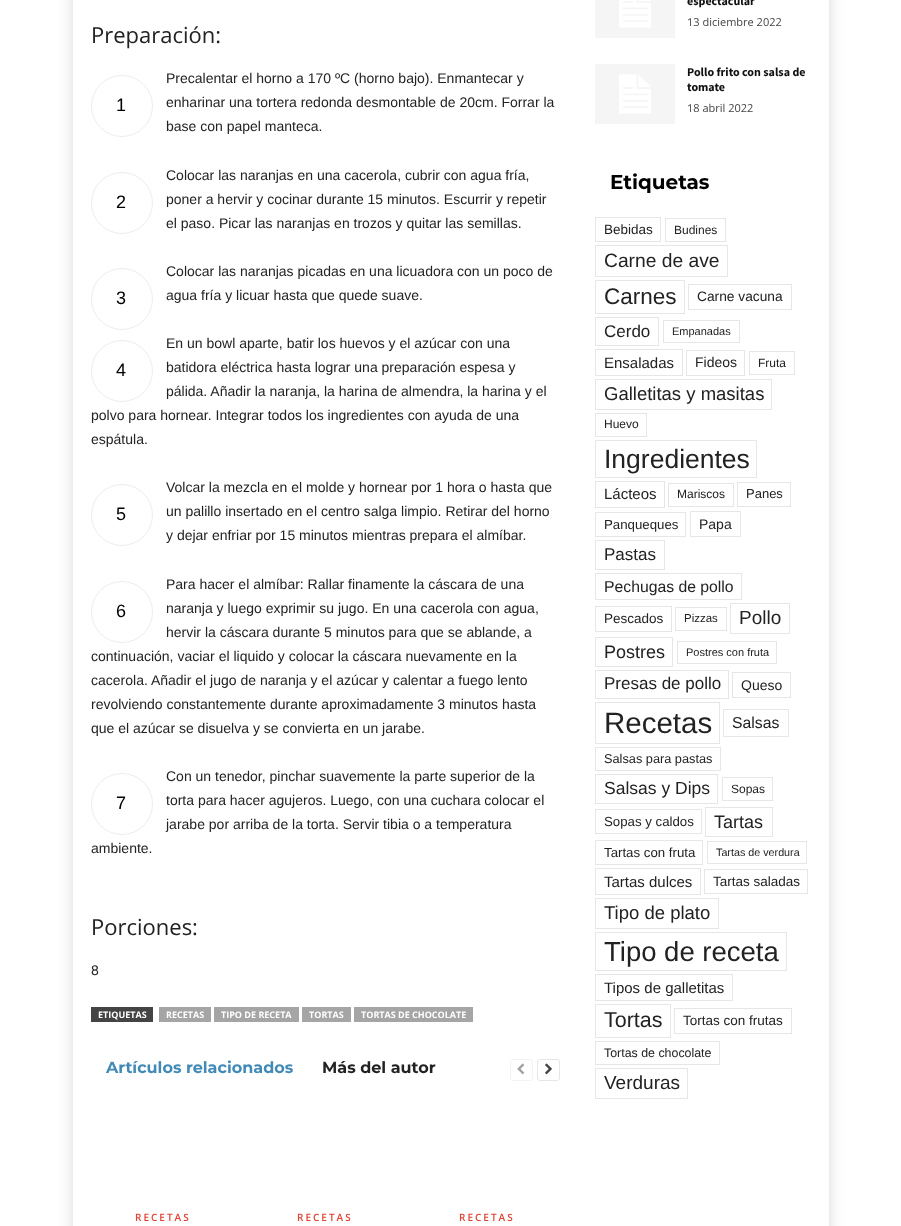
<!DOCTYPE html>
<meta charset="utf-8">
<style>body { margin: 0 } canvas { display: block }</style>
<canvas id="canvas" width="901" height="1226"></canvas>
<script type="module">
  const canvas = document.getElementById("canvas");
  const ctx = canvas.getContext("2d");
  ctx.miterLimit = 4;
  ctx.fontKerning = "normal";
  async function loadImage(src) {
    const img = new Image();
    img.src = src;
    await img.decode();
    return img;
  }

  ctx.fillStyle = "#ffffff";
  ctx.fillRect(0, 0, 901, 1226);
  ctx.save();
  ctx.beginPath();
  ctx.moveTo(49, 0);
  ctx.lineTo(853, 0);
  ctx.lineTo(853, 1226);
  ctx.lineTo(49, 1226);
  ctx.closePath();
  ctx.moveTo(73, -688);
  ctx.lineTo(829, -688);
  ctx.lineTo(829, 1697);
  ctx.lineTo(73, 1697);
  ctx.closePath();
  ctx.clip("evenodd");
  ctx.fillStyle = "rgba(0, 0, 0, 0.15)";
  ctx.filter = "blur(7.5px)";
  ctx.beginPath();
  ctx.rect(73, -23, 756, 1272);
  ctx.fill();
  ctx.filter = "none";
  ctx.restore();
  ctx.font = "22px Open Sans";
  ctx.fillStyle = "#222222";
  ctx.fillText("Preparación:", 91, 43);
  ctx.font = "14px Liberation Sans";
  ctx.fillText("Precalentar el horno a 170 ºC (horno bajo). Enmantecar y", 166, 83);
  ctx.beginPath();
  ctx.arc(122, 106, 30.5, 0, Math.PI * 2);
  ctx.strokeStyle = "#ededed";
  ctx.stroke();
  ctx.font = "18px Liberation Sans";
  ctx.fillStyle = "#000000";
  ctx.fillText("1", 116, 111);
  ctx.font = "14px Liberation Sans";
  ctx.fillStyle = "#222222";
  ctx.fillText("enharinar una tortera redonda desmontable de 20cm. Forrar la", 166, 107);
  ctx.fillText("base con papel manteca.", 166, 131);
  ctx.fillText("Colocar las naranjas en una cacerola, cubrir con agua fría,", 166, 180);
  ctx.beginPath();
  ctx.arc(122, 203, 30.5, 0, Math.PI * 2);
  ctx.stroke();
  ctx.font = "18px Liberation Sans";
  ctx.fillStyle = "#000000";
  ctx.fillText("2", 116, 208);
  ctx.font = "14px Liberation Sans";
  ctx.fillStyle = "#222222";
  ctx.fillText("poner a hervir y cocinar durante 15 minutos. Escurrir y repetir", 166, 204);
  ctx.fillText("el paso. Picar las naranjas en trozos y quitar las semillas.", 166, 228);
  ctx.fillText("Colocar las naranjas picadas en una licuadora con un poco de", 166, 276);
  ctx.beginPath();
  ctx.arc(122, 299, 30.5, 0, Math.PI * 2);
  ctx.stroke();
  ctx.font = "18px Liberation Sans";
  ctx.fillStyle = "#000000";
  ctx.fillText("3", 116, 304);
  ctx.font = "14px Liberation Sans";
  ctx.fillStyle = "#222222";
  ctx.fillText("agua fría y licuar hasta que quede suave.", 166, 300);
  ctx.fillText("En un bowl aparte, batir los huevos y el azúcar con una", 166, 348);
  ctx.beginPath();
  ctx.arc(122, 371, 30.5, 0, Math.PI * 2);
  ctx.stroke();
  ctx.font = "18px Liberation Sans";
  ctx.fillStyle = "#000000";
  ctx.fillText("4", 116, 376);
  ctx.font = "14px Liberation Sans";
  ctx.fillStyle = "#222222";
  ctx.fillText("batidora eléctrica hasta lograr una preparación espesa y", 166, 372);
  ctx.fillText("pálida. Añadir la naranja, la harina de almendra, la harina y el", 166, 396);
  ctx.fillText("polvo para hornear. Integrar todos los ingredientes con ayuda de una", 91, 420);
  ctx.fillText("espátula.", 91, 444);
  ctx.fillText("Volcar la mezcla en el molde y hornear por 1 hora o hasta que", 166, 492);
  ctx.beginPath();
  ctx.arc(122, 515, 30.5, 0, Math.PI * 2);
  ctx.stroke();
  ctx.font = "18px Liberation Sans";
  ctx.fillStyle = "#000000";
  ctx.fillText("5", 116, 520);
  ctx.font = "14px Liberation Sans";
  ctx.fillStyle = "#222222";
  ctx.fillText("un palillo insertado en el centro salga limpio. Retirar del horno", 166, 516);
  ctx.fillText("y dejar enfriar por 15 minutos mientras prepara el almíbar.", 166, 540);
  ctx.fillText("Para hacer el almíbar: Rallar finamente la cáscara de una", 166, 589);
  ctx.beginPath();
  ctx.arc(122, 612, 30.5, 0, Math.PI * 2);
  ctx.stroke();
  ctx.font = "18px Liberation Sans";
  ctx.fillStyle = "#000000";
  ctx.fillText("6", 116, 617);
  ctx.font = "14px Liberation Sans";
  ctx.fillStyle = "#222222";
  ctx.fillText("naranja y luego exprimir su jugo. En una cacerola con agua,", 166, 613);
  ctx.fillText("hervir la cáscara durante 5 minutos para que se ablande, a", 166, 637);
  ctx.fillText("continuación, vaciar el liquido y colocar la cáscara nuevamente en la", 91, 661);
  ctx.fillText("cacerola. Añadir el jugo de naranja y el azúcar y calentar a fuego lento", 91, 685);
  ctx.fillText("revolviendo constantemente durante aproximadamente 3 minutos hasta", 91, 709);
  ctx.fillText("que el azúcar se disuelva y se convierta en un jarabe.", 91, 733);
  ctx.fillText("Con un tenedor, pinchar suavemente la parte superior de la", 166, 781);
  ctx.beginPath();
  ctx.arc(122, 804, 30.5, 0, Math.PI * 2);
  ctx.stroke();
  ctx.font = "18px Liberation Sans";
  ctx.fillStyle = "#000000";
  ctx.fillText("7", 116, 809);
  ctx.font = "14px Liberation Sans";
  ctx.fillStyle = "#222222";
  ctx.fillText("torta para hacer agujeros. Luego, con una cuchara colocar el", 166, 805);
  ctx.fillText("jarabe por arriba de la torta. Servir tibia o a temperatura", 166, 829);
  ctx.fillText("ambiente.", 91, 853);
  ctx.font = "22px Open Sans";
  ctx.fillText("Porciones:", 91, 935);
  ctx.font = "14px Liberation Sans";
  ctx.fillText("8", 91, 975);
  ctx.fillStyle = "#444444";
  ctx.fillRect(91, 1007, 62, 15);
  ctx.font = "bold 9px Open Sans";
  ctx.fillStyle = "#ffffff";
  ctx.fillText("ETIQUETAS", 98, 1018);
  ctx.fillStyle = "#a5a5a5";
  ctx.fillRect(159, 1007, 52, 15);
  ctx.fillStyle = "#ffffff";
  ctx.fillText("RECETAS", 166, 1018);
  ctx.fillStyle = "#a5a5a5";
  ctx.fillRect(214, 1007, 85, 15);
  ctx.fillStyle = "#ffffff";
  ctx.fillText("TIPO DE RECETA", 221, 1018);
  ctx.fillStyle = "#a5a5a5";
  ctx.fillRect(302, 1007, 49, 15);
  ctx.fillStyle = "#ffffff";
  ctx.fillText("TORTAS", 309, 1018);
  ctx.fillStyle = "#a5a5a5";
  ctx.fillRect(354, 1007, 119, 15);
  ctx.fillStyle = "#ffffff";
  ctx.fillText("TORTAS DE CHOCOLATE", 361, 1018);
  ctx.font = "bold 16px Montserrat";
  ctx.fillStyle = "#418ab7";
  ctx.fillText("Artículos relacionados", 106, 1073);
  ctx.fillStyle = "#222222";
  ctx.fillText("Más del autor", 322, 1073);
  ctx.beginPath();
  ctx.roundRect(510.5, 1059.5, 22, 21, 2.5);
  ctx.strokeStyle = "#f3f3f3";
  ctx.stroke();
  ctx.drawImage(await loadImage("img1.png"), 517, 1063, 8, 12);
  ctx.beginPath();
  ctx.roundRect(537.5, 1059.5, 22, 21, 2.5);
  ctx.strokeStyle = "#e6e6e6";
  ctx.stroke();
  ctx.drawImage(await loadImage("img2.png"), 545, 1063, 7, 12);
  ctx.letterSpacing = "2px";
  ctx.font = "600 10px Open Sans";
  ctx.fillStyle = "#e24234";
  ctx.fillText("RECETAS", 135, 1221);
  ctx.fillText("RECETAS", 297, 1221);
  ctx.fillText("RECETAS", 459, 1221);
  ctx.drawImage(await loadImage("img3.png"), 595, 0, 80, 38);
  ctx.letterSpacing = "0px";
  ctx.font = "bold 12px Source Sans Pro";
  ctx.fillStyle = "#111111";
  ctx.fillText("espectacular", 687, 5);
  ctx.font = "11px Open Sans";
  ctx.fillStyle = "#444444";
  ctx.fillText("13 diciembre 2022", 687, 26);
  ctx.drawImage(await loadImage("img4.png"), 595, 64, 80, 60);
  ctx.font = "bold 12px Source Sans Pro";
  ctx.fillStyle = "#111111";
  ctx.fillText("Pollo frito con salsa de", 687, 76);
  ctx.fillText("tomate", 687, 91);
  ctx.font = "11px Open Sans";
  ctx.fillStyle = "#444444";
  ctx.fillText("18 abril 2022", 687, 112);
  ctx.font = "bold 20px Montserrat";
  ctx.fillStyle = "#000000";
  ctx.fillText("Etiquetas", 610, 189);
  ctx.strokeRect(595.5, 217.5, 65, 24);
  ctx.font = "13.5px Liberation Sans";
  ctx.fillStyle = "#222222";
  ctx.fillText("Bebidas", 604, 234);
  ctx.strokeRect(665.5, 218.5, 60, 23);
  ctx.font = "12px Liberation Sans";
  ctx.fillText("Budines", 674, 234);
  ctx.strokeRect(595.5, 245.5, 132, 31);
  ctx.font = "19.25px Liberation Sans";
  ctx.fillText("Carne de ave", 604, 267);
  ctx.strokeRect(595.5, 280.5, 89, 33);
  ctx.font = "22.5px Liberation Sans";
  ctx.fillText("Carnes", 604, 304);
  ctx.strokeRect(688.5, 284.5, 103, 25);
  ctx.font = "13.75px Liberation Sans";
  ctx.fillText("Carne vacuna", 697, 301);
  ctx.strokeRect(595.5, 317.5, 63, 28);
  ctx.font = "17px Liberation Sans";
  ctx.fillText("Cerdo", 604, 337);
  ctx.strokeRect(663.5, 320.5, 76, 22);
  ctx.font = "11px Liberation Sans";
  ctx.fillText("Empanadas", 672, 335);
  ctx.strokeRect(595.5, 349.5, 87, 26);
  ctx.font = "15px Liberation Sans";
  ctx.fillText("Ensaladas", 604, 368);
  ctx.strokeRect(686.5, 350.5, 58, 25);
  ctx.font = "14px Liberation Sans";
  ctx.fillText("Fideos", 695, 367);
  ctx.strokeRect(749.5, 351.5, 45, 23);
  ctx.font = "12px Liberation Sans";
  ctx.fillText("Fruta", 758, 367);
  ctx.strokeRect(595.5, 379.5, 176, 30);
  ctx.font = "18.5px Liberation Sans";
  ctx.fillText("Galletitas y masitas", 604, 400);
  ctx.strokeRect(595.5, 413.5, 51, 23);
  ctx.font = "12px Liberation Sans";
  ctx.fillText("Huevo", 604, 428);
  ctx.strokeRect(595.5, 440.5, 161, 37);
  ctx.font = "26.5px Liberation Sans";
  ctx.fillText("Ingredientes", 604, 468);
  ctx.strokeRect(595.5, 481.5, 69, 26);
  ctx.font = "15px Liberation Sans";
  ctx.fillText("Lácteos", 604, 499);
  ctx.strokeRect(668.5, 483.5, 65, 23);
  ctx.font = "12px Liberation Sans";
  ctx.fillText("Mariscos", 677, 498);
  ctx.strokeRect(737.5, 482.5, 53, 24);
  ctx.font = "13px Liberation Sans";
  ctx.fillText("Panes", 746, 498);
  ctx.strokeRect(595.5, 512.5, 90, 24);
  ctx.font = "13.25px Liberation Sans";
  ctx.fillText("Panqueques", 604, 529);
  ctx.strokeRect(690.5, 511.5, 50, 25);
  ctx.font = "14px Liberation Sans";
  ctx.fillText("Papa", 699, 529);
  ctx.strokeRect(595.5, 540.5, 69, 29);
  ctx.font = "17px Liberation Sans";
  ctx.fillText("Pastas", 604, 560);
  ctx.strokeRect(595.5, 573.5, 146, 26);
  ctx.font = "15.75px Liberation Sans";
  ctx.fillText("Pechugas de pollo", 604, 592);
  ctx.strokeRect(595.5, 606.5, 76, 25);
  ctx.font = "13.5px Liberation Sans";
  ctx.fillText("Pescados", 604, 623);
  ctx.strokeRect(675.5, 607.5, 51, 23);
  ctx.font = "11.5px Liberation Sans";
  ctx.fillText("Pizzas", 684, 622);
  ctx.strokeRect(730.5, 603.5, 59, 30);
  ctx.font = "19px Liberation Sans";
  ctx.fillText("Pollo", 739, 624);
  ctx.strokeRect(595.5, 637.5, 77, 29);
  ctx.font = "18px Liberation Sans";
  ctx.fillText("Postres", 604, 658);
  ctx.strokeRect(677.5, 641.5, 99, 22);
  ctx.font = "11px Liberation Sans";
  ctx.fillText("Postres con fruta", 686, 656);
  ctx.strokeRect(595.5, 670.5, 133, 28);
  ctx.font = "17px Liberation Sans";
  ctx.fillText("Presas de pollo", 604, 689);
  ctx.strokeRect(732.5, 672.5, 58, 25);
  ctx.font = "14px Liberation Sans";
  ctx.fillText("Queso", 741, 690);
  ctx.strokeRect(595.5, 702.5, 124, 41);
  ctx.font = "29.5px Liberation Sans";
  ctx.fillText("Recetas", 604, 733);
  ctx.strokeRect(723.5, 709.5, 65, 27);
  ctx.font = "15.75px Liberation Sans";
  ctx.fillText("Salsas", 732, 728);
  ctx.strokeRect(595.5, 747.5, 125, 23);
  ctx.font = "12.75px Liberation Sans";
  ctx.fillText("Salsas para pastas", 604, 763);
  ctx.strokeRect(595.5, 774.5, 122, 29);
  ctx.font = "17.5px Liberation Sans";
  ctx.fillText("Salsas y Dips", 604, 794);
  ctx.strokeRect(722.5, 777.5, 50, 23);
  ctx.font = "12px Liberation Sans";
  ctx.fillText("Sopas", 731, 793);
  ctx.strokeRect(595.5, 809.5, 106, 24);
  ctx.font = "13.25px Liberation Sans";
  ctx.fillText("Sopas y caldos", 604, 826);
  ctx.strokeRect(705.5, 807.5, 67, 29);
  ctx.font = "18px Liberation Sans";
  ctx.fillText("Tartas", 714, 828);
  ctx.strokeRect(595.5, 840.5, 107, 24);
  ctx.font = "13.25px Liberation Sans";
  ctx.fillText("Tartas con fruta", 604, 857);
  ctx.strokeRect(707.5, 841.5, 99, 22);
  ctx.font = "10.75px Liberation Sans";
  ctx.fillText("Tartas de verdura", 716, 856);
  ctx.strokeRect(595.5, 868.5, 105, 26);
  ctx.font = "15px Liberation Sans";
  ctx.fillText("Tartas dulces", 604, 887);
  ctx.strokeRect(704.5, 869.5, 103, 24);
  ctx.font = "13.5px Liberation Sans";
  ctx.fillText("Tartas saladas", 713, 886);
  ctx.strokeRect(595.5, 898.5, 123, 30);
  ctx.font = "18.5px Liberation Sans";
  ctx.fillText("Tipo de plato", 604, 919);
  ctx.strokeRect(595.5, 932.5, 191, 38);
  ctx.font = "27.5px Liberation Sans";
  ctx.fillText("Tipo de receta", 604, 961);
  ctx.strokeRect(595.5, 974.5, 137, 26);
  ctx.font = "15px Liberation Sans";
  ctx.fillText("Tipos de galletitas", 604, 993);
  ctx.strokeRect(595.5, 1004.5, 75, 33);
  ctx.font = "21.5px Liberation Sans";
  ctx.fillText("Tortas", 604, 1027);
  ctx.strokeRect(674.5, 1008.5, 117, 25);
  ctx.font = "13.5px Liberation Sans";
  ctx.fillText("Tortas con frutas", 683, 1025);
  ctx.strokeRect(595.5, 1041.5, 124, 23);
  ctx.font = "12.4px Liberation Sans";
  ctx.fillText("Tortas de chocolate", 604, 1057);
  ctx.strokeRect(595.5, 1068.5, 92, 30);
  ctx.font = "19px Liberation Sans";
  ctx.fillText("Verduras", 604, 1089);
</script>
